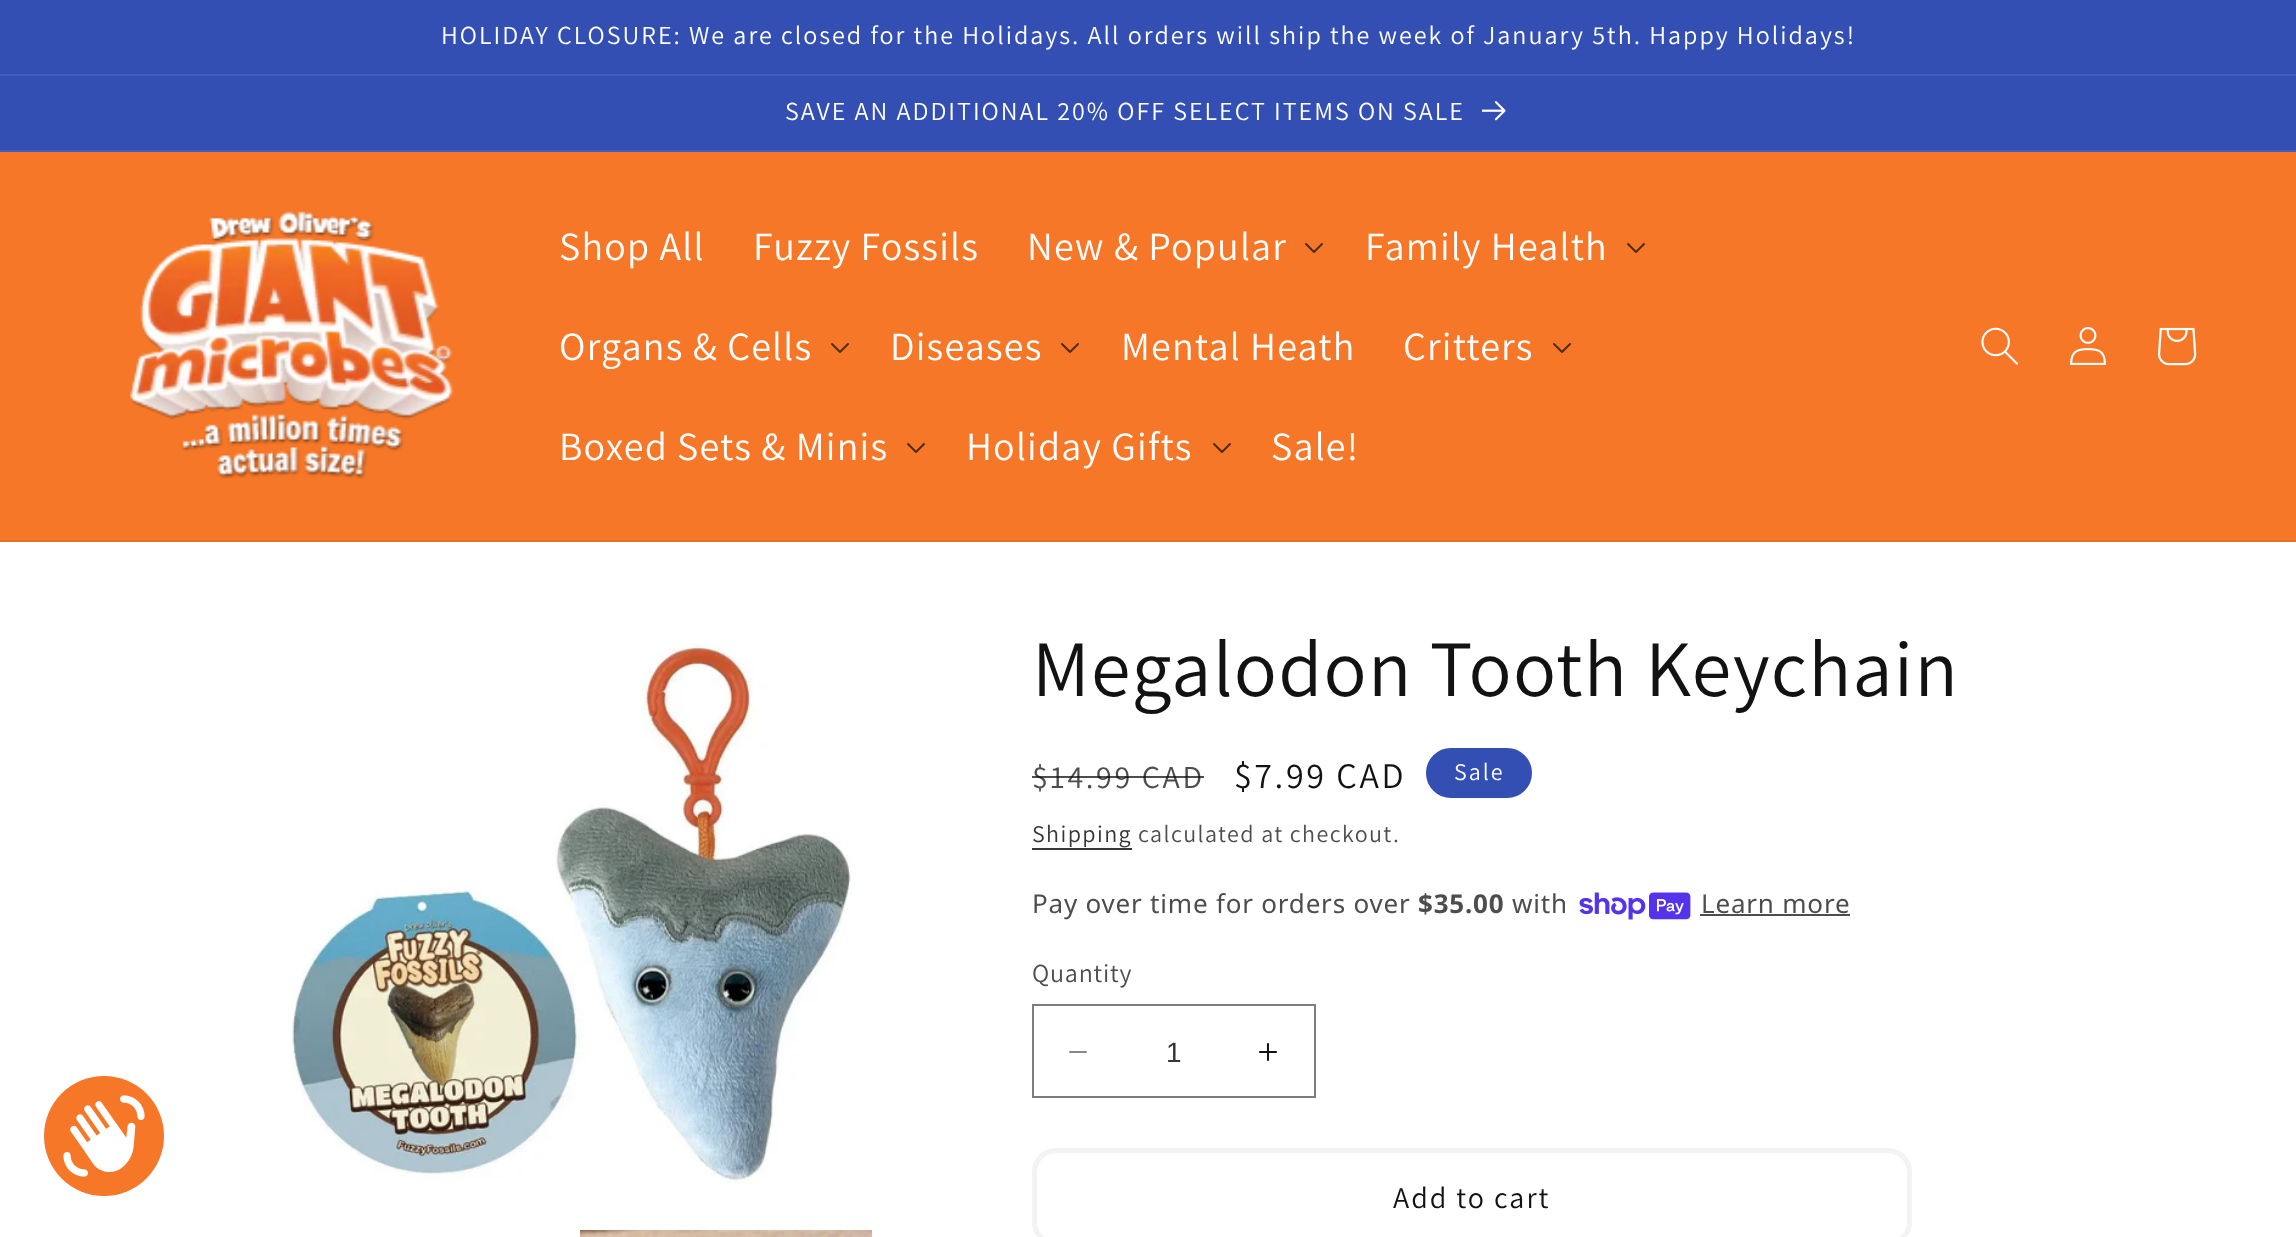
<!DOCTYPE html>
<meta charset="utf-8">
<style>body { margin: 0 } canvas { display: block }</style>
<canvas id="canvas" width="2296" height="1237"></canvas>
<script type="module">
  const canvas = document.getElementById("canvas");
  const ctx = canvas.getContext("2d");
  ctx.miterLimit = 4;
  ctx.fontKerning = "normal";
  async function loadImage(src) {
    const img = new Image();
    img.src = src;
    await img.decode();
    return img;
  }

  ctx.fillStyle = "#ffffff";
  ctx.fillRect(0, 0, 2296, 1237);
  ctx.fillStyle = "#334fb4";
  ctx.fillRect(0, 0, 2296, 74);
  ctx.fillStyle = "#435dba";
  ctx.fillRect(0, 74, 2296, 2);
  ctx.letterSpacing = "2px";
  ctx.font = "26px Assistant";
  ctx.fillStyle = "#ffffff";
  ctx.fillText("HOLIDAY CLOSURE: We are closed for the Holidays. All orders will ship the week of January 5th. Happy Holidays!", 441, 44);
  ctx.fillStyle = "#334fb4";
  ctx.fillRect(0, 76, 2296, 74);
  ctx.fillStyle = "#435dba";
  ctx.fillRect(0, 150, 2296, 2);
  ctx.fillStyle = "#ffffff";
  ctx.fillText("SAVE AN ADDITIONAL 20% OFF SELECT ITEMS ON SALE", 785, 120);
  ctx.drawImage(await loadImage("img1.png"), 1482, 101, 24, 20);
  ctx.fillStyle = "#f67728";
  ctx.fillRect(0, 152, 2296, 388);
  ctx.fillStyle = "#e46f26";
  ctx.fillRect(0, 540, 2296, 2);
  ctx.drawImage(await loadImage("img2.png"), 130, 211, 324, 268);
  ctx.letterSpacing = "1.2px";
  ctx.font = "40px Assistant";
  ctx.fillStyle = "#ffffff";
  ctx.fillText("Shop All", 559, 260);
  ctx.fillText("Fuzzy Fossils", 753, 260);
  ctx.fillText("New & Popular", 1027, 260);
  ctx.drawImage(await loadImage("img3.png"), 1305, 243, 18, 10);
  ctx.fillText("Family Health", 1365, 260);
  ctx.drawImage(await loadImage("img3.png"), 1627, 243, 18, 10);
  ctx.fillText("Organs & Cells", 559, 360);
  ctx.drawImage(await loadImage("img3.png"), 831, 343, 18, 10);
  ctx.fillText("Diseases", 890, 360);
  ctx.drawImage(await loadImage("img3.png"), 1061, 343, 18, 10);
  ctx.fillText("Mental Heath", 1121, 360);
  ctx.fillText("Critters", 1403, 360);
  ctx.drawImage(await loadImage("img3.png"), 1553, 343, 18, 10);
  ctx.fillText("Boxed Sets & Minis", 559, 460);
  ctx.drawImage(await loadImage("img3.png"), 907, 443, 18, 10);
  ctx.fillText("Holiday Gifts", 966, 460);
  ctx.drawImage(await loadImage("img3.png"), 1213, 443, 18, 10);
  ctx.fillText("Sale!", 1271, 460);
  ctx.drawImage(await loadImage("img4.png"), 1981, 327, 37, 38);
  ctx.drawImage(await loadImage("img5.png"), 2070, 327, 36, 38);
  ctx.drawImage(await loadImage("img6.png"), 2158, 327, 39, 39);
  ctx.fillStyle = "#f67728";
  ctx.beginPath();
  ctx.arc(104, 1136, 60, 0, Math.PI * 2);
  ctx.fill();
  ctx.drawImage(await loadImage("img7.png"), 63, 1095, 82, 82);
  ctx.drawImage(await loadImage("img8.png"), 291, 643, 561, 540);
  ctx.drawImage(await loadImage("img9.png"), 580, 1230, 292, 7);
  ctx.font = "80px Assistant";
  ctx.fillStyle = "#121212";
  ctx.fillText("Megalodon Tooth Keychain", 1032, 696);
  ctx.letterSpacing = "2.6px";
  ctx.font = "32px Assistant";
  ctx.fillStyle = "#4d4d4d";
  ctx.fillText("$14.99 CAD", 1032, 788);
  ctx.fillStyle = "rgba(18, 18, 18, 0.75)";
  ctx.fillRect(1032, 776, 172, 2);
  ctx.font = "36px Assistant";
  ctx.fillStyle = "#121212";
  ctx.fillText("$7.99 CAD", 1234, 788);
  ctx.fillStyle = "#334fb4";
  ctx.beginPath();
  ctx.roundRect(1427, 749, 104, 48, 24);
  ctx.fill();
  ctx.strokeStyle = "#334fb4";
  ctx.lineWidth = 2;
  ctx.stroke();
  ctx.letterSpacing = "2px";
  ctx.font = "24px Assistant";
  ctx.fillStyle = "#ffffff";
  ctx.fillText("Sale", 1454, 780);
  ctx.letterSpacing = "1.4px";
  ctx.fillStyle = "#363636";
  ctx.fillText("Shipping", 1032, 842);
  ctx.fillRect(1032, 848, 100, 2);
  ctx.fillStyle = "#4d4d4d";
  ctx.fillText("calculated at checkout.", 1138, 842);
  ctx.letterSpacing = "0.8px";
  ctx.font = "26px Noto Sans";
  ctx.fillText("Pay over time for orders over", 1032, 913);
  ctx.font = "bold 26px Noto Sans";
  ctx.fillText("$35.00", 1418, 913);
  ctx.font = "26px Noto Sans";
  ctx.fillText("with", 1512, 913);
  ctx.drawImage(await loadImage("img10.png"), 1579, 892, 112, 28);
  ctx.fillText("Learn more", 1701, 913);
  ctx.fillRect(1700, 914, 150, 2);
  ctx.font = "26px Assistant";
  ctx.fillText("Quantity", 1032, 982);
  ctx.drawImage(await loadImage("img11.png"), 1069, 1051, 18, 2);
  ctx.drawImage(await loadImage("img12.png"), 1259, 1043, 18, 18);
  ctx.strokeStyle = "#7d7d7d";
  ctx.strokeRect(1033, 1005, 282, 92);
  ctx.letterSpacing = "0px";
  ctx.font = "28px Liberation Sans";
  ctx.fillStyle = "#363636";
  ctx.fillText("1", 1166, 1062);
  ctx.beginPath();
  ctx.roundRect(1034.5, 1150.5, 875, 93, 21.5);
  ctx.strokeStyle = "#f3f3f3";
  ctx.lineWidth = 5;
  ctx.stroke();
  ctx.letterSpacing = "2px";
  ctx.font = "30px Assistant";
  ctx.fillStyle = "#121212";
  ctx.fillText("Add to cart", 1393, 1208);
</script>
